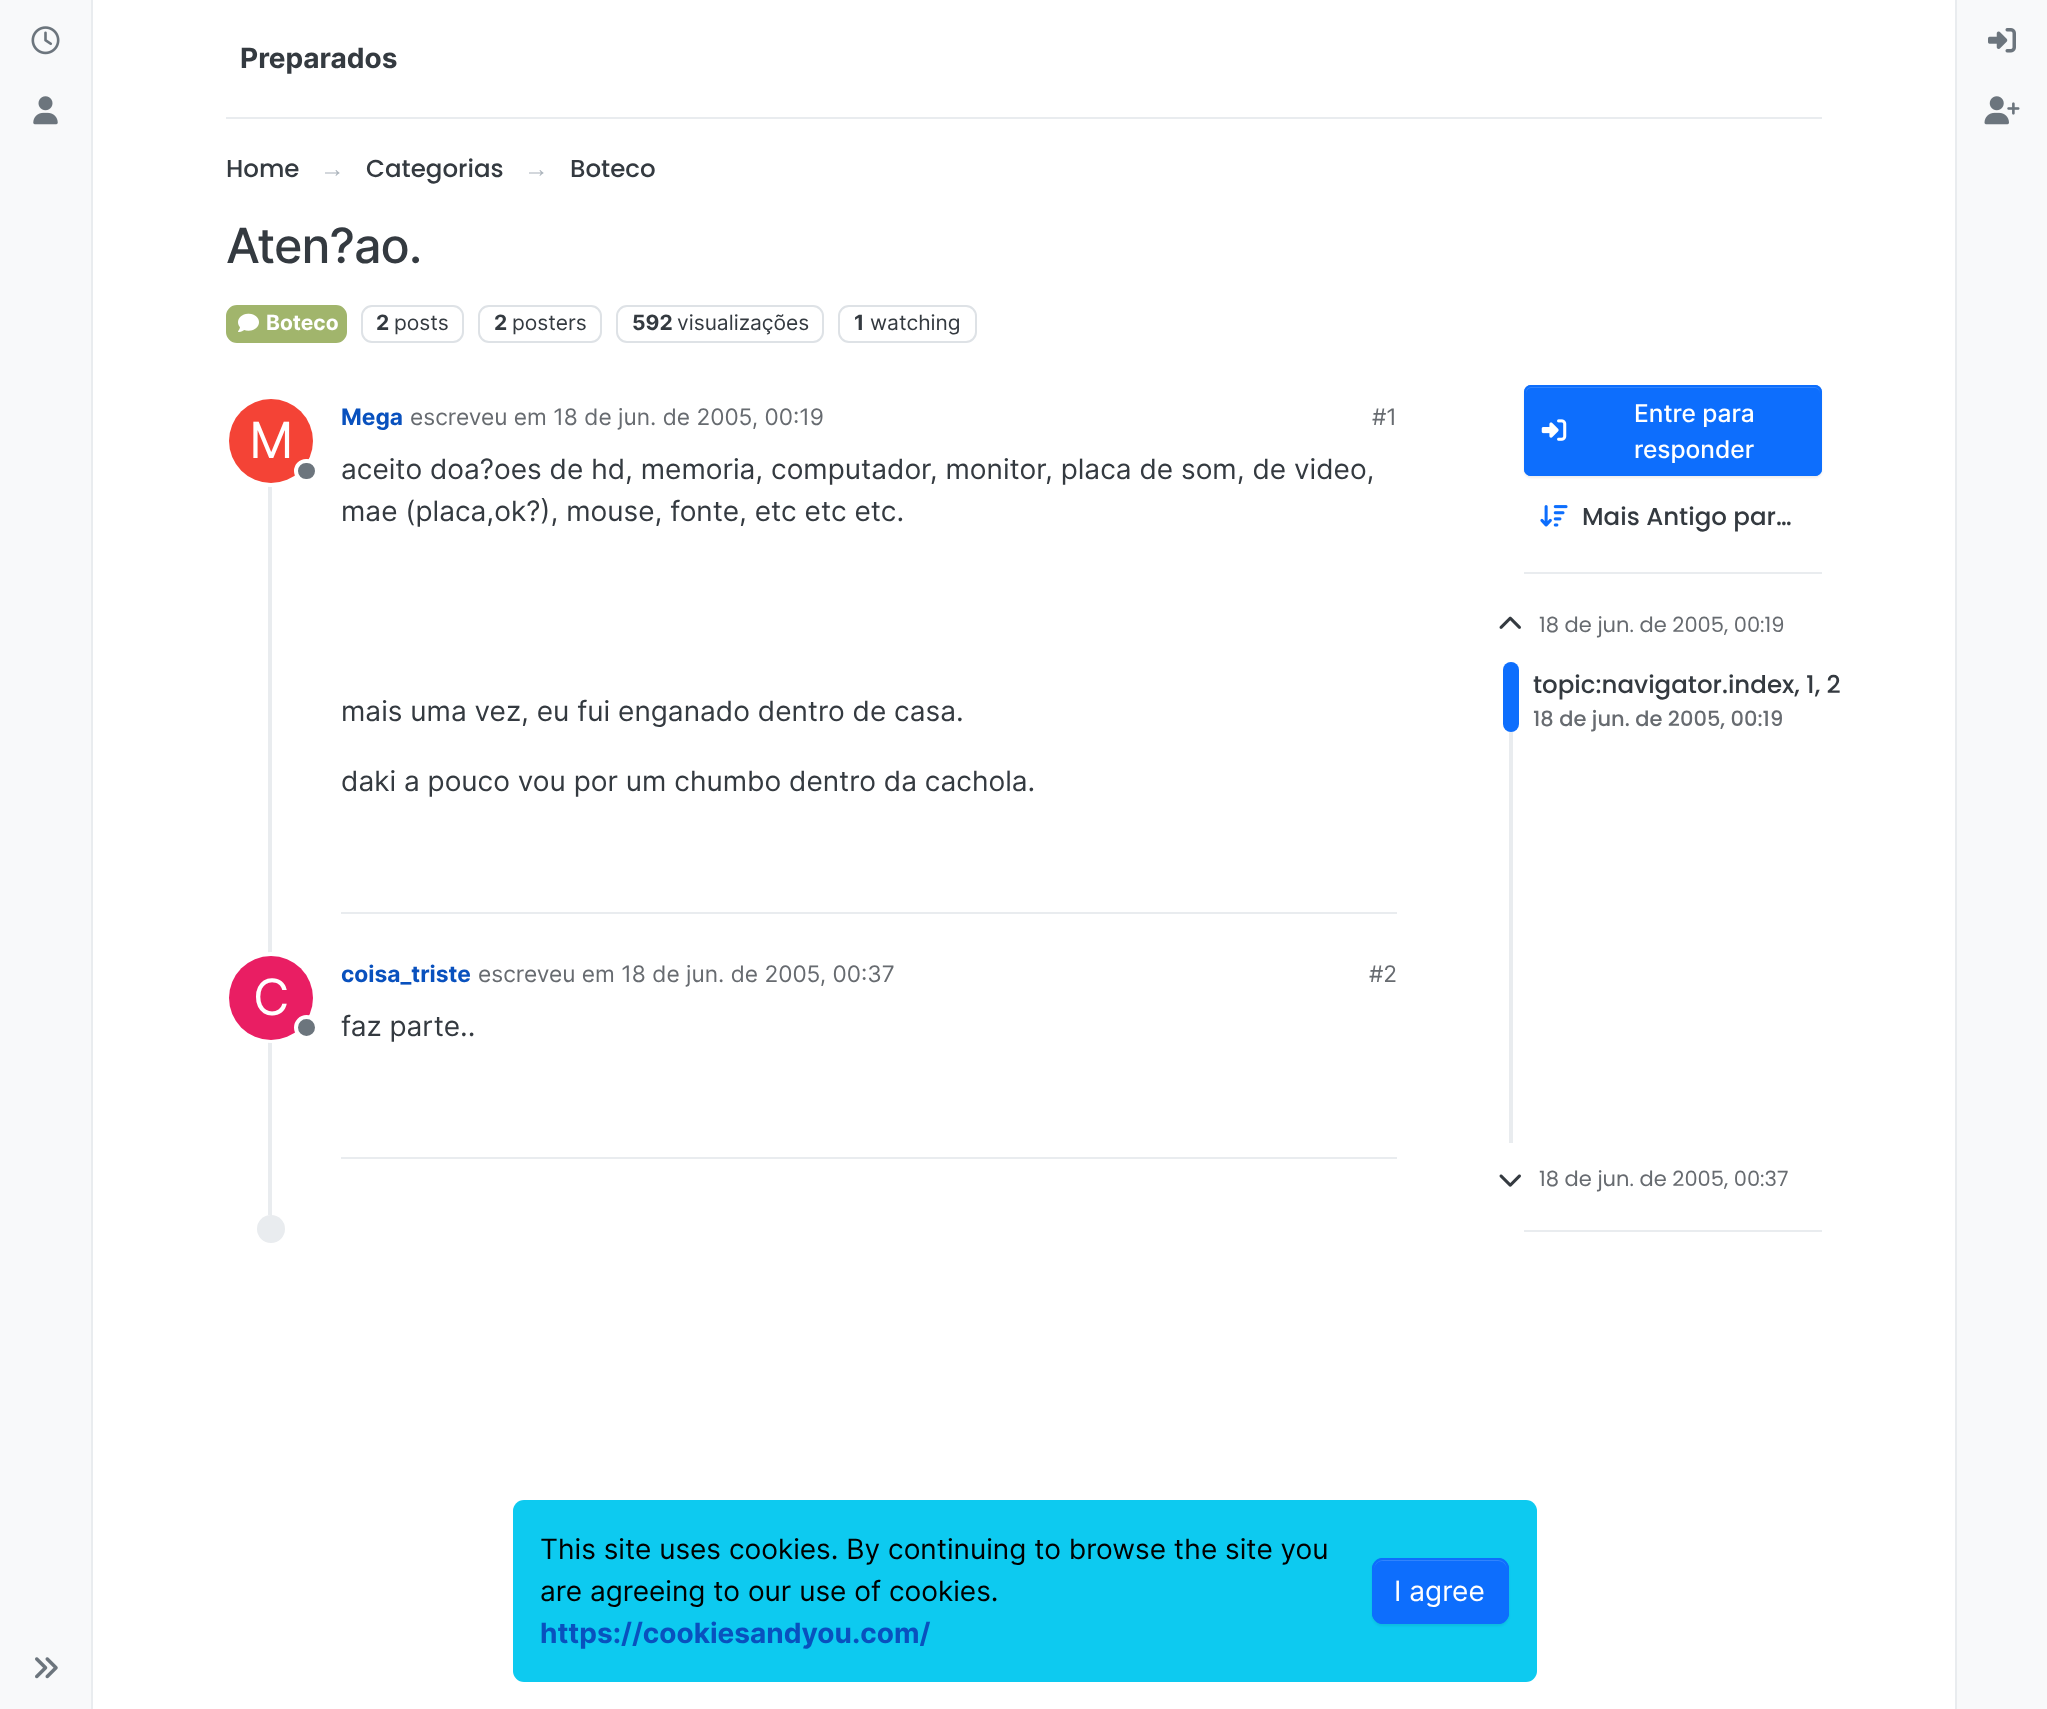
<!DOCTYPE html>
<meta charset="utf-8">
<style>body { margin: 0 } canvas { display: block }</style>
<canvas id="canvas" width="2047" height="1709"></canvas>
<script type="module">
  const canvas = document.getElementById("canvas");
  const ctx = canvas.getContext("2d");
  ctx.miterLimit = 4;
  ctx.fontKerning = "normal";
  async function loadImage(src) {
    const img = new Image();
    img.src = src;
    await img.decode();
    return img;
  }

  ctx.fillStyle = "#ffffff";
  ctx.fillRect(0, 0, 2047, 1709);
  ctx.fillStyle = "#f8f9fa";
  ctx.fillRect(0, 0, 91, 1709);
  ctx.fillStyle = "#e9ecef";
  ctx.fillRect(91, 0, 2, 1709);
  ctx.drawImage(await loadImage("img1.png"), 31, 26, 29, 29);
  ctx.drawImage(await loadImage("img2.png"), 33, 96, 25, 29);
  ctx.drawImage(await loadImage("img3.png"), 35, 1657, 23, 22);
  ctx.fillRect(226, 117, 1596, 2);
  ctx.font = "bold 28px Inter";
  ctx.fillStyle = "#343a40";
  ctx.fillText("Preparados", 240, 68);
  ctx.font = "500 24.5px Poppins";
  ctx.fillText("Home", 226, 177);
  ctx.font = "24.5px Liberation Sans";
  ctx.fillStyle = "#adb5bd";
  ctx.fillText("→", 320, 177);
  ctx.font = "500 24.5px Poppins";
  ctx.fillStyle = "#343a40";
  ctx.fillText("Categorias", 366, 177);
  ctx.font = "24.5px Liberation Sans";
  ctx.fillStyle = "#adb5bd";
  ctx.fillText("→", 524, 177);
  ctx.font = "500 24.5px Poppins";
  ctx.fillStyle = "#343a40";
  ctx.fillText("Boteco", 570, 177);
  ctx.letterSpacing = "-1px";
  ctx.font = "500 48.5px Inter";
  ctx.fillText("Aten?ao.", 226, 263);
  ctx.fillStyle = "#a1b56c";
  ctx.beginPath();
  ctx.roundRect(227, 306, 119, 36, 10);
  ctx.fill();
  ctx.strokeStyle = "#a1b56c";
  ctx.lineWidth = 2;
  ctx.stroke();
  ctx.drawImage(await loadImage("img4.png"), 238, 313, 21, 19);
  ctx.letterSpacing = "0px";
  ctx.font = "bold 21px Inter";
  ctx.fillStyle = "#ffffff";
  ctx.fillText("Boteco", 266, 330);
  ctx.beginPath();
  ctx.roundRect(362, 306, 101, 36, 10);
  ctx.strokeStyle = "#dee2e6";
  ctx.stroke();
  ctx.fillStyle = "#343a40";
  ctx.fillText("2", 376, 330);
  ctx.font = "21px Inter";
  ctx.fillText("posts", 394, 330);
  ctx.beginPath();
  ctx.roundRect(479, 306, 122, 36, 10);
  ctx.stroke();
  ctx.font = "bold 21px Inter";
  ctx.fillText("2", 494, 330);
  ctx.font = "21px Inter";
  ctx.fillText("posters", 512, 330);
  ctx.beginPath();
  ctx.roundRect(617, 306, 206, 36, 10);
  ctx.stroke();
  ctx.font = "bold 21px Inter";
  ctx.fillText("592", 632, 330);
  ctx.font = "21px Inter";
  ctx.fillText("visualizações", 677, 330);
  ctx.beginPath();
  ctx.roundRect(839, 306, 137, 36, 10);
  ctx.stroke();
  ctx.font = "bold 21px Inter";
  ctx.fillText("1", 854, 330);
  ctx.font = "21px Inter";
  ctx.fillText("watching", 870, 330);
  ctx.fillStyle = "#e9ecef";
  ctx.fillRect(268, 482, 4, 733);
  ctx.beginPath();
  ctx.arc(271.5, 441.5, 43.5, 0, Math.PI * 2);
  ctx.strokeStyle = "#ffffff";
  ctx.lineWidth = 4;
  ctx.stroke();
  ctx.fillStyle = "#f44336";
  ctx.beginPath();
  ctx.arc(271, 441, 42, 0, Math.PI * 2);
  ctx.fill();
  ctx.font = "50px Inter";
  ctx.fillStyle = "#ffffff";
  ctx.fillText("M", 249, 458);
  ctx.fillStyle = "#6c757d";
  ctx.beginPath();
  ctx.roundRect(296, 461, 21, 20, 10);
  ctx.fill();
  ctx.stroke();
  ctx.font = "bold 22.75px Inter";
  ctx.fillStyle = "#0951be";
  ctx.fillText("Mega", 341, 425);
  ctx.font = "22.75px Inter";
  ctx.fillStyle = "#676b70";
  ctx.fillText("escreveu em 18 de jun. de 2005, 00:19", 410, 425);
  ctx.fillText("#1", 1372, 425);
  ctx.font = "28px Inter";
  ctx.fillStyle = "#343a40";
  ctx.fillText("aceito doa?oes de hd, memoria, computador, monitor, placa de som, de video,", 341, 479);
  ctx.fillText("mae (placa,ok?), mouse, fonte, etc etc etc.", 341, 521);
  ctx.fillText("mais uma vez, eu fui enganado dentro de casa.", 341, 721);
  ctx.fillText("daki a pouco vou por um chumbo dentro da cachola.", 341, 791);
  ctx.fillStyle = "#e9ecef";
  ctx.fillRect(341, 912, 1056, 2);
  ctx.beginPath();
  ctx.arc(271.5, 997.5, 43.5, 0, Math.PI * 2);
  ctx.stroke();
  ctx.fillStyle = "#e91e63";
  ctx.beginPath();
  ctx.arc(271, 998, 42, 0, Math.PI * 2);
  ctx.fill();
  ctx.font = "50px Inter";
  ctx.fillStyle = "#ffffff";
  ctx.fillText("C", 253, 1015);
  ctx.fillStyle = "#6c757d";
  ctx.beginPath();
  ctx.arc(306.5, 1027.5, 10.5, 0, Math.PI * 2);
  ctx.fill();
  ctx.stroke();
  ctx.font = "bold 22.75px Inter";
  ctx.fillStyle = "#0951be";
  ctx.fillText("coisa_triste", 341, 982);
  ctx.font = "22.75px Inter";
  ctx.fillStyle = "#676b70";
  ctx.fillText("escreveu em 18 de jun. de 2005, 00:37", 478, 982);
  ctx.fillText("#2", 1369, 982);
  ctx.font = "28px Inter";
  ctx.fillStyle = "#343a40";
  ctx.fillText("faz parte..", 341, 1036);
  ctx.fillStyle = "#e9ecef";
  ctx.fillRect(341, 1157, 1056, 2);
  ctx.beginPath();
  ctx.arc(271, 1229, 14, 0, Math.PI * 2);
  ctx.fill();
  ctx.fillStyle = "rgba(0, 0, 0, 0.07)";
  ctx.filter = "blur(1px)";
  ctx.beginPath();
  ctx.roundRect(1524, 387, 298, 91, 7);
  ctx.fill();
  ctx.filter = "none";
  ctx.fillStyle = "#0d6efd";
  ctx.beginPath();
  ctx.roundRect(1524, 385, 298, 91, 7);
  ctx.fill();
  ctx.fillStyle = "#3184fd";
  ctx.beginPath();
  ctx.moveTo(1531, 388);
  ctx.lineTo(1815, 388);
  ctx.bezierCurveTo(1818, 388, 1820, 391, 1820, 394);
  ctx.bezierCurveTo(1820, 391, 1819, 387, 1815, 387);
  ctx.lineTo(1530, 387);
  ctx.bezierCurveTo(1526, 388, 1526, 391, 1526, 394);
  ctx.bezierCurveTo(1526, 391, 1528, 388, 1531, 388);
  ctx.closePath();
  ctx.fill();
  ctx.beginPath();
  ctx.roundRect(1525, 386, 296, 89, 6);
  ctx.strokeStyle = "#0d6efd";
  ctx.lineWidth = 2;
  ctx.stroke();
  ctx.drawImage(await loadImage("img5.png"), 1541, 419, 26, 22);
  ctx.font = "500 24.5px Inter";
  ctx.fillStyle = "#ffffff";
  ctx.fillText("Entre para", 1634, 422);
  ctx.fillText("responder", 1634, 458);
  ctx.drawImage(await loadImage("img6.png"), 1540, 505, 28, 22);
  ctx.font = "500 24.5px Poppins";
  ctx.fillStyle = "#343a40";
  ctx.fillText("Mais Antigo par…", 1582, 525);
  ctx.fillStyle = "#e9ecef";
  ctx.fillRect(1524, 572, 298, 2);
  ctx.drawImage(await loadImage("img7.png"), 1499, 616, 22, 13);
  ctx.font = "21px Poppins";
  ctx.fillStyle = "#676b70";
  ctx.fillText("18 de jun. de 2005, 00:19", 1539, 632);
  ctx.fillStyle = "#e9ecef";
  ctx.fillRect(1509, 662, 4, 481);
  ctx.fillStyle = "#0d6efd";
  ctx.beginPath();
  ctx.roundRect(1503, 662, 16, 70, 8);
  ctx.fill();
  ctx.font = "500 24.5px Poppins";
  ctx.fillStyle = "#343a40";
  ctx.fillText("topic:navigator.index, 1, 2", 1533, 693);
  ctx.font = "500 21px Poppins";
  ctx.fillStyle = "#676b70";
  ctx.fillText("18 de jun. de 2005, 00:19", 1533, 726);
  ctx.drawImage(await loadImage("img8.png"), 1499, 1174, 22, 13);
  ctx.font = "21px Poppins";
  ctx.fillText("18 de jun. de 2005, 00:37", 1539, 1186);
  ctx.fillStyle = "#e9ecef";
  ctx.fillRect(1524, 1230, 298, 2);
  ctx.fillStyle = "#f8f9fa";
  ctx.fillRect(1957, 0, 90, 1709);
  ctx.fillStyle = "#e9ecef";
  ctx.fillRect(1955, 0, 2, 1709);
  ctx.drawImage(await loadImage("img9.png"), 1988, 28, 28, 25);
  ctx.drawImage(await loadImage("img10.png"), 1984, 96, 36, 29);
  ctx.fillStyle = "#0dcaf0";
  ctx.beginPath();
  ctx.roundRect(513, 1500, 1024, 182, 11);
  ctx.fill();
  ctx.font = "28px Inter";
  ctx.fillStyle = "#000000";
  ctx.fillText("This site uses cookies. By continuing to browse the site you", 540, 1559);
  ctx.fillText("are agreeing to our use of cookies.", 540, 1601);
  ctx.font = "bold 28px Inter";
  ctx.fillStyle = "#0951be";
  ctx.fillText("https://cookiesandyou.com/", 540, 1643);
  ctx.fillStyle = "rgba(0, 0, 0, 0.07)";
  ctx.filter = "blur(1px)";
  ctx.beginPath();
  ctx.roundRect(1372, 1559, 137, 67, 11);
  ctx.fill();
  ctx.filter = "none";
  ctx.fillStyle = "#0d6efd";
  ctx.beginPath();
  ctx.roundRect(1372, 1558, 137, 66, 11);
  ctx.fill();
  ctx.fillStyle = "#3184fd";
  ctx.beginPath();
  ctx.moveTo(1382, 1561);
  ctx.lineTo(1498, 1561);
  ctx.bezierCurveTo(1503, 1561, 1507, 1565, 1507, 1570);
  ctx.bezierCurveTo(1507, 1554, 1490, 1559, 1479, 1559);
  ctx.lineTo(1402, 1559);
  ctx.bezierCurveTo(1391, 1559, 1374, 1554, 1374, 1570);
  ctx.bezierCurveTo(1374, 1565, 1378, 1561, 1382, 1561);
  ctx.closePath();
  ctx.fill();
  ctx.beginPath();
  ctx.roundRect(1373, 1559, 135, 64, 10);
  ctx.stroke();
  ctx.font = "28px Inter";
  ctx.fillStyle = "#ffffff";
  ctx.fillText("I agree", 1394, 1601);
</script>
